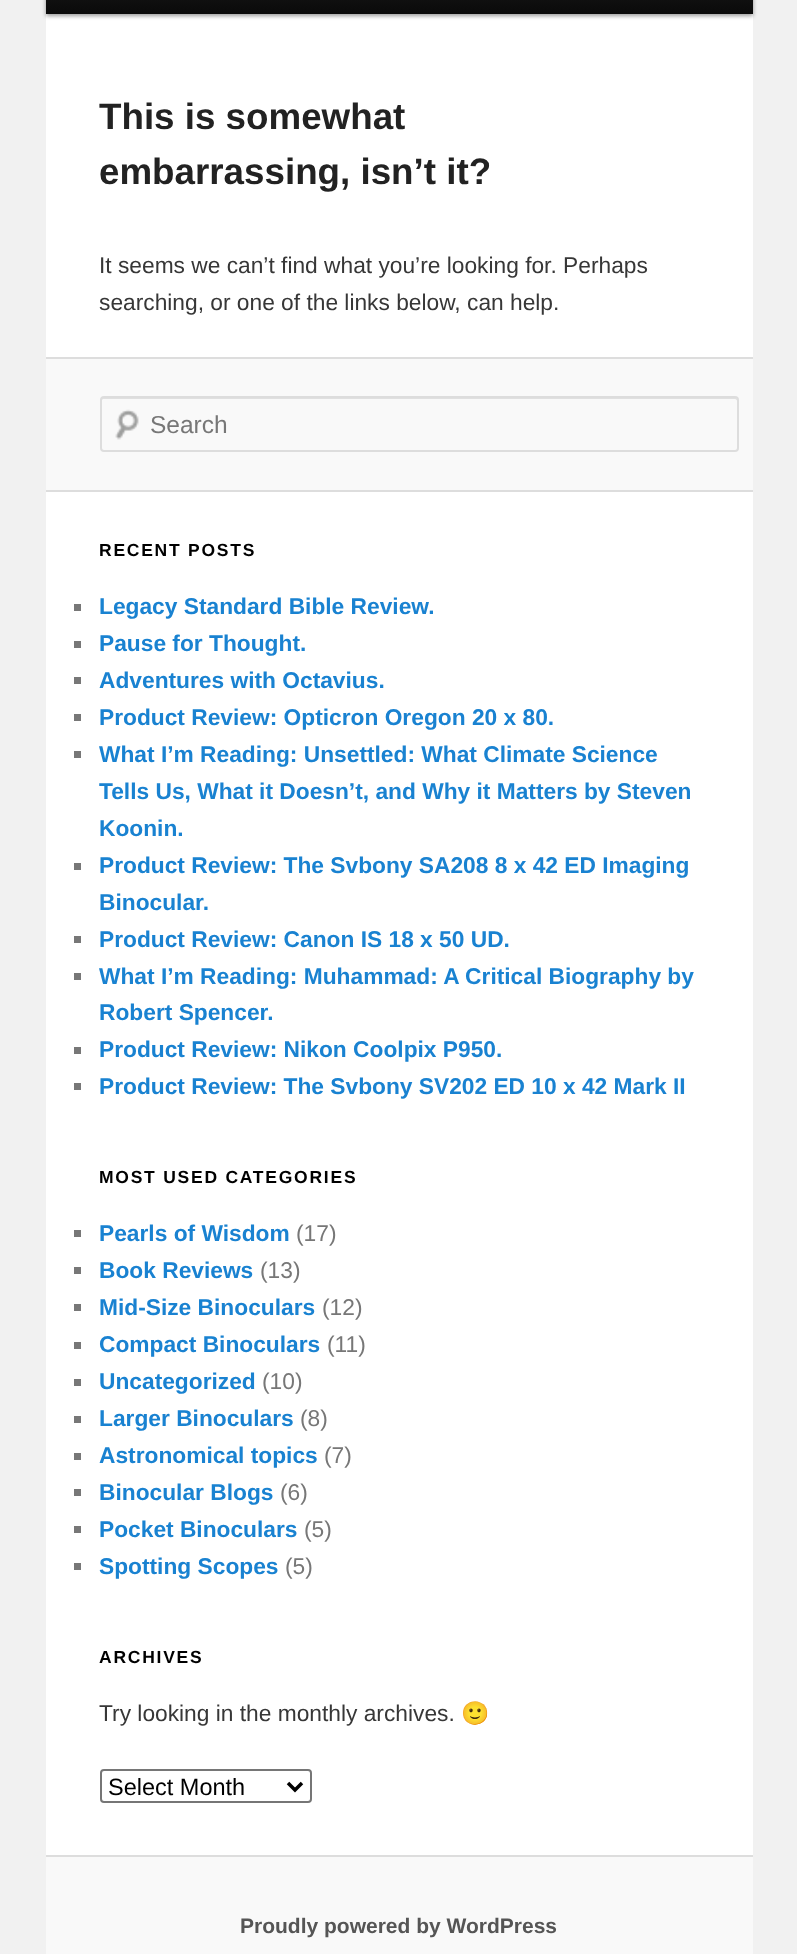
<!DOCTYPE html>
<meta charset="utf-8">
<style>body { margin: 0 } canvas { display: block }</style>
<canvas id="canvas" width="797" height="1954"></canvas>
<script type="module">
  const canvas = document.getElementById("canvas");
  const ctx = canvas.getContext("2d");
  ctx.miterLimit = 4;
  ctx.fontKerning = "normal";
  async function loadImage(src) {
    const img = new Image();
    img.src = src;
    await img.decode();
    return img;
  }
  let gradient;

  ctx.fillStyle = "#f1f1f1";
  ctx.fillRect(0, 0, 797, 1954);
  ctx.fillStyle = "#ffffff";
  ctx.fillRect(46, 14, 707, 1841);
  ctx.fillStyle = "rgba(0, 0, 0, 0.4)";
  ctx.filter = "blur(2px)";
  ctx.beginPath();
  ctx.rect(46, -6, 707, 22);
  ctx.fill();
  ctx.filter = "none";
  gradient = ctx.createLinearGradient(399, -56, 399, 14);
  gradient.addColorStop(0, "#252525");
  gradient.addColorStop(1, "#0a0a0a");
  ctx.fillStyle = gradient;
  ctx.fillRect(46, 0, 707, 14);
  ctx.font = "bold 36.75px Liberation Sans";
  ctx.fillStyle = "#222222";
  ctx.fillText("This is somewhat", 99, 129);
  ctx.fillText("embarrassing, isn’t it?", 99, 184);
  ctx.font = "22.75px Liberation Sans";
  ctx.fillStyle = "#373737";
  ctx.fillText("It seems we can’t find what you’re looking for. Perhaps", 99, 273);
  ctx.fillText("searching, or one of the links below, can help.", 99, 310);
  ctx.fillStyle = "#f9f9f9";
  ctx.fillRect(46, 359, 707, 131);
  ctx.fillStyle = "#dddddd";
  ctx.fillRect(46, 357, 707, 2);
  ctx.fillRect(46, 490, 707, 2);
  ctx.drawImage(await loadImage("img1.png"), 115, 409, 24, 31);
  ctx.fillStyle = "#e0e0e0";
  ctx.beginPath();
  ctx.moveTo(103, 399);
  ctx.lineTo(735, 399);
  ctx.bezierCurveTo(736, 399, 737, 400, 737, 401);
  ctx.bezierCurveTo(737, 399, 737, 397, 735, 397);
  ctx.lineTo(104, 397);
  ctx.lineTo(102, 398);
  ctx.lineTo(102, 401);
  ctx.bezierCurveTo(102, 400, 102, 399, 103, 399);
  ctx.closePath();
  ctx.fill();
  ctx.beginPath();
  ctx.roundRect(101, 397, 637, 54, 3);
  ctx.strokeStyle = "#dddddd";
  ctx.lineWidth = 2;
  ctx.stroke();
  ctx.font = "24.5px Liberation Sans";
  ctx.fillStyle = "#777777";
  ctx.fillText("Search", 150, 433);
  ctx.letterSpacing = "1.75px";
  ctx.font = "bold 17.5px Liberation Sans";
  ctx.fillStyle = "#000000";
  ctx.fillText("RECENT POSTS", 99, 556);
  ctx.fillStyle = "#777777";
  ctx.fillRect(74, 604, 7, 7);
  ctx.letterSpacing = "0px";
  ctx.font = "bold 22.75px Liberation Sans";
  ctx.fillStyle = "#1982d1";
  ctx.fillText("Legacy Standard Bible Review.", 99, 614);
  ctx.fillStyle = "#777777";
  ctx.fillRect(74, 641, 7, 7);
  ctx.fillStyle = "#1982d1";
  ctx.fillText("Pause for Thought.", 99, 651);
  ctx.fillStyle = "#777777";
  ctx.fillRect(74, 677, 7, 7);
  ctx.fillStyle = "#1982d1";
  ctx.fillText("Adventures with Octavius.", 99, 688);
  ctx.fillStyle = "#777777";
  ctx.fillRect(74, 714, 7, 7);
  ctx.fillStyle = "#1982d1";
  ctx.fillText("Product Review: Opticron Oregon 20 x 80.", 99, 725);
  ctx.fillStyle = "#777777";
  ctx.fillRect(74, 751, 7, 7);
  ctx.fillStyle = "#1982d1";
  ctx.fillText("What I’m Reading: Unsettled: What Climate Science", 99, 762);
  ctx.fillText("Tells Us, What it Doesn’t, and Why it Matters by Steven", 99, 799);
  ctx.fillText("Koonin.", 99, 836);
  ctx.fillStyle = "#777777";
  ctx.fillRect(74, 863, 7, 7);
  ctx.fillStyle = "#1982d1";
  ctx.fillText("Product Review: The Svbony SA208 8 x 42 ED Imaging", 99, 873);
  ctx.fillText("Binocular.", 99, 910);
  ctx.fillStyle = "#777777";
  ctx.fillRect(74, 936, 7, 7);
  ctx.fillStyle = "#1982d1";
  ctx.fillText("Product Review: Canon IS 18 x 50 UD.", 99, 947);
  ctx.fillStyle = "#777777";
  ctx.fillRect(74, 973, 7, 7);
  ctx.fillStyle = "#1982d1";
  ctx.fillText("What I’m Reading: Muhammad: A Critical Biography by", 99, 984);
  ctx.fillText("Robert Spencer.", 99, 1020);
  ctx.fillStyle = "#777777";
  ctx.fillRect(74, 1047, 7, 7);
  ctx.fillStyle = "#1982d1";
  ctx.fillText("Product Review: Nikon Coolpix P950.", 99, 1057);
  ctx.fillStyle = "#777777";
  ctx.fillRect(74, 1083, 7, 7);
  ctx.fillStyle = "#1982d1";
  ctx.fillText("Product Review: The Svbony SV202 ED 10 x 42 Mark II", 99, 1094);
  ctx.letterSpacing = "1.75px";
  ctx.font = "bold 17.5px Liberation Sans";
  ctx.fillStyle = "#000000";
  ctx.fillText("MOST USED CATEGORIES", 99, 1183);
  ctx.fillStyle = "#777777";
  ctx.fillRect(74, 1230, 7, 7);
  ctx.letterSpacing = "0px";
  ctx.font = "bold 22.75px Liberation Sans";
  ctx.fillStyle = "#1982d1";
  ctx.fillText("Pearls of Wisdom", 99, 1241);
  ctx.font = "22.75px Liberation Sans";
  ctx.fillStyle = "#777777";
  ctx.fillText("(17)", 296, 1241);
  ctx.fillRect(74, 1267, 7, 7);
  ctx.font = "bold 22.75px Liberation Sans";
  ctx.fillStyle = "#1982d1";
  ctx.fillText("Book Reviews", 99, 1278);
  ctx.font = "22.75px Liberation Sans";
  ctx.fillStyle = "#777777";
  ctx.fillText("(13)", 260, 1278);
  ctx.fillRect(74, 1304, 7, 7);
  ctx.font = "bold 22.75px Liberation Sans";
  ctx.fillStyle = "#1982d1";
  ctx.fillText("Mid-Size Binoculars", 99, 1315);
  ctx.font = "22.75px Liberation Sans";
  ctx.fillStyle = "#777777";
  ctx.fillText("(12)", 322, 1315);
  ctx.fillRect(74, 1342, 7, 7);
  ctx.font = "bold 22.75px Liberation Sans";
  ctx.fillStyle = "#1982d1";
  ctx.fillText("Compact Binoculars", 99, 1352);
  ctx.font = "22.75px Liberation Sans";
  ctx.fillStyle = "#777777";
  ctx.fillText("(11)", 327, 1352);
  ctx.fillRect(74, 1379, 7, 7);
  ctx.font = "bold 22.75px Liberation Sans";
  ctx.fillStyle = "#1982d1";
  ctx.fillText("Uncategorized", 99, 1389);
  ctx.font = "22.75px Liberation Sans";
  ctx.fillStyle = "#777777";
  ctx.fillText("(10)", 262, 1389);
  ctx.fillRect(74, 1416, 7, 7);
  ctx.font = "bold 22.75px Liberation Sans";
  ctx.fillStyle = "#1982d1";
  ctx.fillText("Larger Binoculars", 99, 1426);
  ctx.font = "22.75px Liberation Sans";
  ctx.fillStyle = "#777777";
  ctx.fillText("(8)", 300, 1426);
  ctx.fillRect(74, 1453, 7, 7);
  ctx.font = "bold 22.75px Liberation Sans";
  ctx.fillStyle = "#1982d1";
  ctx.fillText("Astronomical topics", 99, 1463);
  ctx.font = "22.75px Liberation Sans";
  ctx.fillStyle = "#777777";
  ctx.fillText("(7)", 324, 1463);
  ctx.fillRect(74, 1489, 7, 7);
  ctx.font = "bold 22.75px Liberation Sans";
  ctx.fillStyle = "#1982d1";
  ctx.fillText("Binocular Blogs", 99, 1500);
  ctx.font = "22.75px Liberation Sans";
  ctx.fillStyle = "#777777";
  ctx.fillText("(6)", 280, 1500);
  ctx.fillRect(74, 1526, 7, 7);
  ctx.font = "bold 22.75px Liberation Sans";
  ctx.fillStyle = "#1982d1";
  ctx.fillText("Pocket Binoculars", 99, 1537);
  ctx.font = "22.75px Liberation Sans";
  ctx.fillStyle = "#777777";
  ctx.fillText("(5)", 304, 1537);
  ctx.fillRect(74, 1563, 7, 7);
  ctx.font = "bold 22.75px Liberation Sans";
  ctx.fillStyle = "#1982d1";
  ctx.fillText("Spotting Scopes", 99, 1574);
  ctx.font = "22.75px Liberation Sans";
  ctx.fillStyle = "#777777";
  ctx.fillText("(5)", 285, 1574);
  ctx.letterSpacing = "1.75px";
  ctx.font = "bold 17.5px Liberation Sans";
  ctx.fillStyle = "#000000";
  ctx.fillText("ARCHIVES", 99, 1663);
  ctx.letterSpacing = "0px";
  ctx.font = "22.75px Liberation Sans";
  ctx.fillStyle = "#373737";
  ctx.fillText("Try looking in the monthly archives.", 99, 1721);
  ctx.font = "22.75px Noto Color Emoji";
  ctx.fillText("🙂", 461, 1721);
  ctx.beginPath();
  ctx.roundRect(101, 1770, 210, 32, 3);
  ctx.strokeStyle = "#767676";
  ctx.stroke();
  ctx.beginPath();
  ctx.moveTo(288, 1783);
  ctx.lineTo(295, 1790);
  ctx.lineTo(302, 1783);
  ctx.strokeStyle = "#000000";
  ctx.lineWidth = 3.5;
  ctx.stroke();
  ctx.font = "23.5px Liberation Sans";
  ctx.fillStyle = "#000000";
  ctx.fillText("Select Month", 108, 1795);
  ctx.fillStyle = "#f9f9f9";
  ctx.fillRect(46, 1857, 707, 97);
  ctx.fillStyle = "#dddddd";
  ctx.fillRect(46, 1855, 707, 2);
  ctx.font = "bold 21px Liberation Sans";
  ctx.fillStyle = "#555555";
  ctx.fillText("Proudly powered by WordPress", 240, 1933);
</script>
